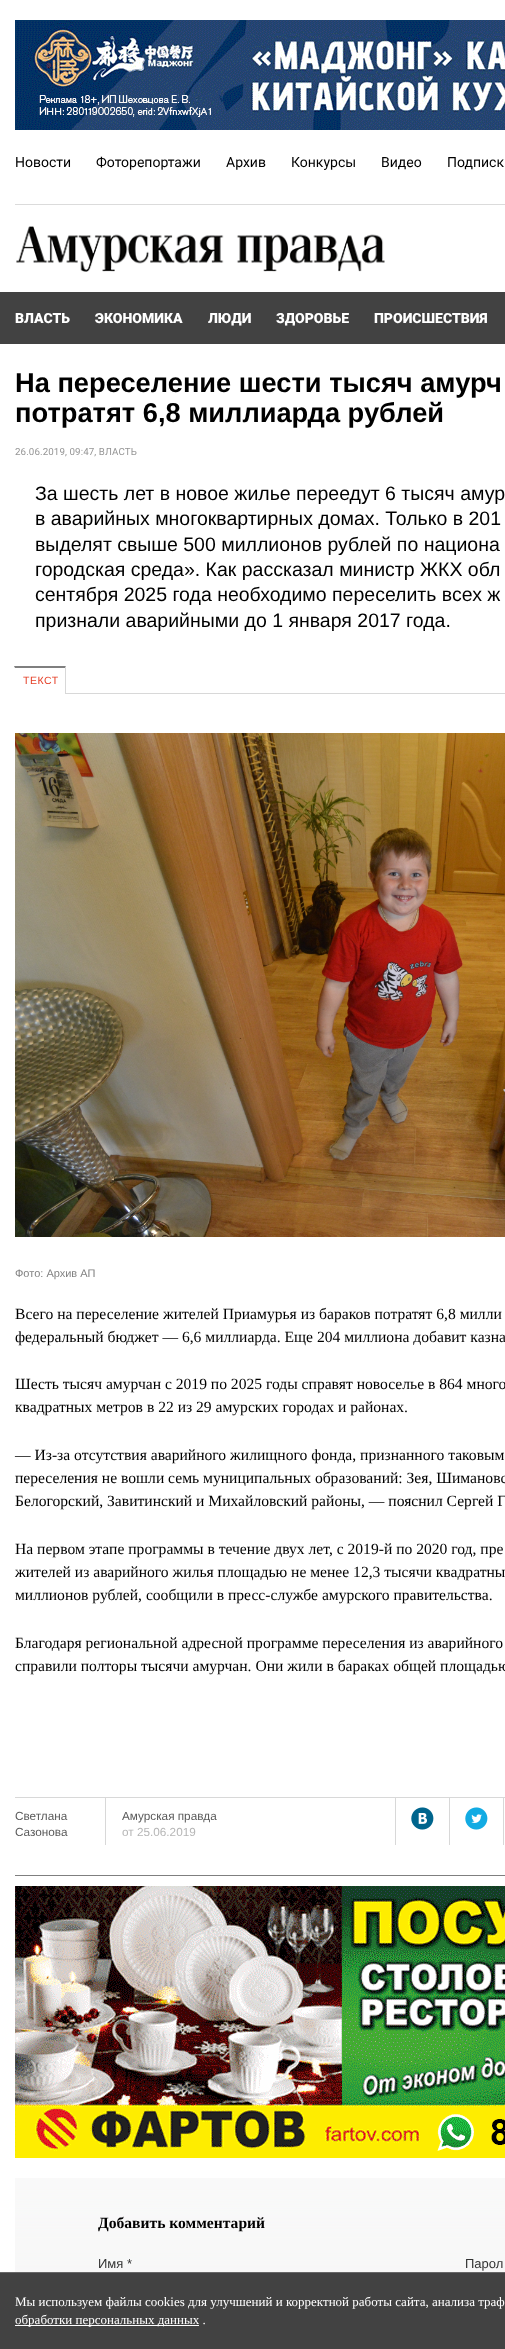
<!DOCTYPE html>
<meta charset="utf-8">
<style>body { margin: 0 } canvas { display: block }</style>
<canvas id="canvas" width="505" height="2349"></canvas>
<script type="module">
  const canvas = document.getElementById("canvas");
  const ctx = canvas.getContext("2d");
  ctx.miterLimit = 4;
  ctx.fontKerning = "normal";
  async function loadImage(src) {
    const img = new Image();
    img.src = src;
    await img.decode();
    return img;
  }

  ctx.fillStyle = "#ffffff";
  ctx.fillRect(0, 0, 505, 2349);
  ctx.drawImage(await loadImage("img1.png"), 15, 20, 490, 110);
  ctx.fillStyle = "#dbdbdb";
  ctx.fillRect(15, 204, 490, 1);
  ctx.font = "14px Roboto";
  ctx.fillStyle = "#000000";
  ctx.fillText("Новости", 15, 167);
  ctx.fillText("Фоторепортажи", 96, 167);
  ctx.fillText("Архив", 226, 167);
  ctx.fillText("Конкурсы", 291, 167);
  ctx.fillText("Видео", 381, 167);
  ctx.fillText("Подписк", 447, 167);
  ctx.drawImage(await loadImage("img2.png"), 16, 226, 369, 46);
  ctx.fillStyle = "#424242";
  ctx.fillRect(0, 292, 505, 52);
  ctx.font = "900 14px Roboto";
  ctx.fillStyle = "#ffffff";
  ctx.fillText("ВЛАСТЬ", 15, 323);
  ctx.fillText("ЭКОНОМИКА", 95, 323);
  ctx.fillText("ЛЮДИ", 208, 323);
  ctx.fillText("ЗДОРОВЬЕ", 276, 323);
  ctx.fillText("ПРОИСШЕСТВИЯ", 374, 323);
  ctx.font = "bold 27.25px Liberation Sans";
  ctx.fillStyle = "#000000";
  ctx.fillText("На переселение шести тысяч амурч", 15, 392);
  ctx.fillText("потратят 6,8 миллиарда рублей", 15, 422);
  ctx.letterSpacing = "0.1px";
  ctx.font = "9.75px Roboto";
  ctx.fillStyle = "#969696";
  ctx.fillText("26.06.2019, 09:47, ВЛАСТЬ", 15, 455);
  ctx.letterSpacing = "0px";
  ctx.font = "19.5px Liberation Sans";
  ctx.fillStyle = "#000000";
  ctx.fillText("За шесть лет в новое жилье переедут 6 тысяч амур", 35, 500);
  ctx.fillText("в аварийных многоквартирных домах. Только в 201", 35, 525);
  ctx.fillText("выделят свыше 500 миллионов рублей по национа", 35, 551);
  ctx.fillText("городская среда». Как рассказал министр ЖКХ обл", 35, 576);
  ctx.fillText("сентября 2025 года необходимо переселить всех ж", 35, 601);
  ctx.fillText("признали аварийными до 1 января 2017 года.", 35, 627);
  ctx.fillStyle = "#d8d8d8";
  ctx.fillRect(66, 693, 439, 1);
  ctx.fillStyle = "#7f7f7f";
  ctx.beginPath();
  ctx.moveTo(14, 666);
  ctx.lineTo(66, 666);
  ctx.lineTo(65, 668);
  ctx.lineTo(15, 668);
  ctx.closePath();
  ctx.fill();
  ctx.fillStyle = "#d8d8d8";
  ctx.beginPath();
  ctx.moveTo(66, 666);
  ctx.lineTo(66, 694);
  ctx.lineTo(65, 694);
  ctx.lineTo(65, 668);
  ctx.closePath();
  ctx.fill();
  ctx.letterSpacing = "0.5px";
  ctx.font = "10.5px Liberation Sans";
  ctx.fillStyle = "#e54028";
  ctx.fillText("ТЕКСТ", 23, 684);
  ctx.drawImage(await loadImage("img3.png"), 15, 733, 490, 504);
  ctx.letterSpacing = "0px";
  ctx.font = "11px Liberation Sans";
  ctx.fillStyle = "#808080";
  ctx.fillText("Фото: Архив АП", 15, 1277);
  ctx.font = "15.6px Liberation Serif";
  ctx.fillStyle = "#000000";
  ctx.fillText("Всего на переселение жителей Приамурья из бараков потратят 6,8 милли", 15, 1319);
  ctx.fillText("федеральный бюджет — 6,6 миллиарда. Еще 204 миллиона добавит казна", 15, 1342);
  ctx.fillText("Шесть тысяч амурчан с 2019 по 2025 годы справят новоселье в 864 много", 15, 1389);
  ctx.fillText("квадратных метров в 22 из 29 амурских городах и районах.", 15, 1412);
  ctx.fillText("— Из-за отсутствия аварийного жилищного фонда, признанного таковым", 15, 1460);
  ctx.fillText("переселения не вошли семь муниципальных образований: Зея, Шимановс", 15, 1483);
  ctx.fillText("Белогорский, Завитинский и Михайловский районы, — пояснил Сергей Г", 15, 1506);
  ctx.fillText("На первом этапе программы в течение двух лет, с 2019-й по 2020 год, пре", 15, 1554);
  ctx.fillText("жителей из аварийного жилья площадью не менее 12,3 тысячи квадратны", 15, 1577);
  ctx.fillText("миллионов рублей, сообщили в пресс-службе амурского правительства.", 15, 1600);
  ctx.fillText("Благодаря региональной адресной программе переселения из аварийного", 15, 1648);
  ctx.fillText("справили полторы тысячи амурчан. Они жили в бараках общей площадью", 15, 1671);
  ctx.fillStyle = "#d8d8d8";
  ctx.fillRect(15, 1797, 490, 1);
  ctx.font = "11.75px Liberation Sans";
  ctx.fillStyle = "#5a5a5a";
  ctx.fillText("Светлана", 15, 1820);
  ctx.fillText("Сазонова", 15, 1836);
  ctx.fillStyle = "#d8d8d8";
  ctx.fillRect(105, 1798, 1, 47);
  ctx.fillStyle = "#5a5a5a";
  ctx.fillText("Амурская правда", 122, 1820);
  ctx.fillStyle = "#b6b6b6";
  ctx.fillText("от 25.06.2019", 122, 1836);
  ctx.fillStyle = "#d8d8d8";
  ctx.fillRect(395, 1798, 1, 47);
  ctx.drawImage(await loadImage("img4.png"), 411, 1807, 23, 23);
  ctx.fillRect(449, 1798, 1, 47);
  ctx.drawImage(await loadImage("img5.png"), 465, 1807, 23, 23);
  ctx.fillRect(503, 1798, 1, 47);
  ctx.fillStyle = "#7f7f7f";
  ctx.fillRect(15, 1875, 490, 1);
  ctx.drawImage(await loadImage("img6.png"), 15, 1886, 490, 272);
  ctx.drawImage(await loadImage("img7.png"), 15, 2178, 490, 94);
  ctx.font = "bold 15.6px Liberation Serif";
  ctx.fillStyle = "#000000";
  ctx.fillText("Добавить комментарий", 98, 2228);
  ctx.font = "13px Liberation Sans";
  ctx.fillStyle = "#333333";
  ctx.fillText("Имя *", 98, 2268);
  ctx.fillText("Парол", 465, 2268);
  ctx.fillStyle = "#424242";
  ctx.fillRect(0, 2273, 505, 76);
  ctx.fillStyle = "#686868";
  ctx.fillRect(0, 2272, 505, 1);
  ctx.font = "13px Liberation Serif";
  ctx.fillStyle = "#ffffff";
  ctx.fillText("Мы используем файлы cookies для улучшений и корректной работы сайта, анализа траф", 15, 2306);
  ctx.fillRect(15, 2325, 184, 1);
  ctx.fillText("обработки персональных данных .", 15, 2324);
</script>
